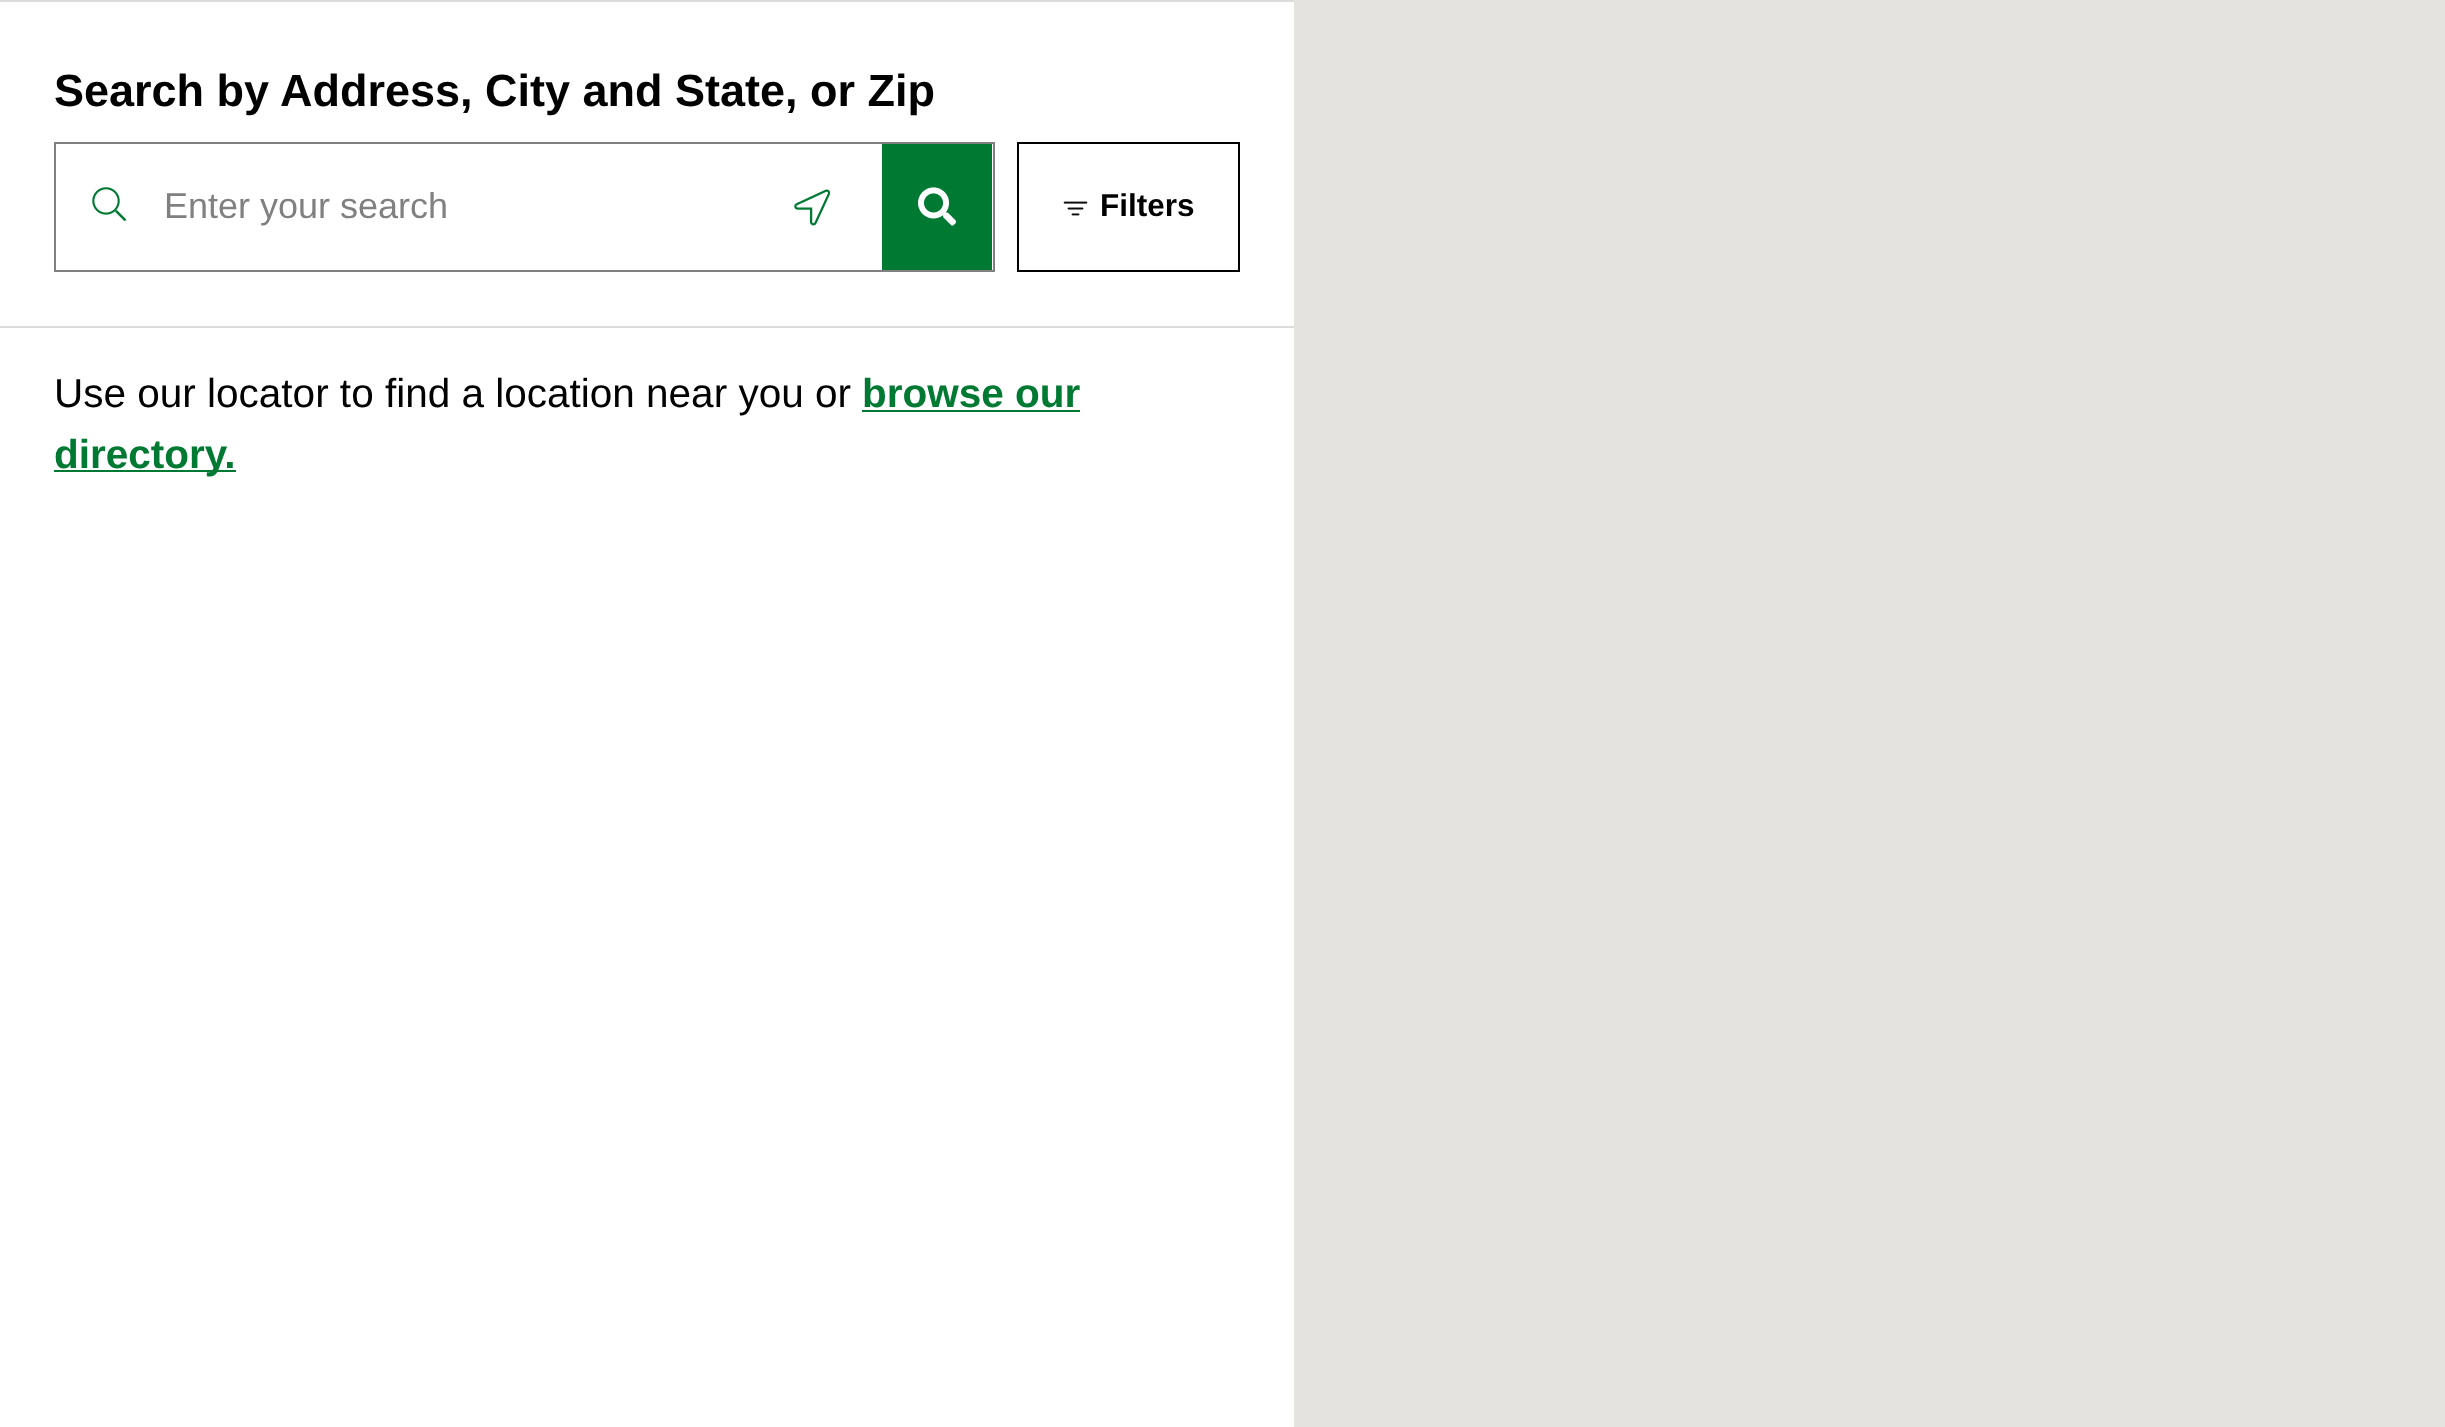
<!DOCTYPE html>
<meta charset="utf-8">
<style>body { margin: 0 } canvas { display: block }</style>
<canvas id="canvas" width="2445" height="1427"></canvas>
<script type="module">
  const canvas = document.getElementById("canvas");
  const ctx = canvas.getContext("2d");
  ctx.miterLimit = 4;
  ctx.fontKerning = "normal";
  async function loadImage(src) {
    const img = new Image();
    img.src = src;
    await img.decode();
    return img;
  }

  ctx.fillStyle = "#ffffff";
  ctx.fillRect(0, 0, 2445, 1427);
  ctx.fillStyle = "#dbdbdb";
  ctx.fillRect(0, 0, 1294, 2);
  ctx.fillRect(0, 326, 1294, 2);
  ctx.font = "bold 45px Liberation Sans";
  ctx.fillStyle = "#000000";
  ctx.fillText("Search by Address, City and State, or Zip", 54, 106);
  ctx.strokeStyle = "#808080";
  ctx.lineWidth = 2;
  ctx.strokeRect(55, 143, 939, 128);
  ctx.drawImage(await loadImage("img1.png"), 92, 187, 34, 34);
  ctx.font = "36px Liberation Sans";
  ctx.fillStyle = "#808080";
  ctx.fillText("Enter your search", 164, 218);
  ctx.drawImage(await loadImage("img2.png"), 794, 189, 36, 37);
  ctx.fillStyle = "#007933";
  ctx.fillRect(882, 144, 110, 126);
  ctx.drawImage(await loadImage("img3.png"), 918, 187, 38, 39);
  ctx.strokeStyle = "#000000";
  ctx.strokeRect(1018, 143, 221, 128);
  ctx.drawImage(await loadImage("img4.png"), 1063, 201, 25, 15);
  ctx.font = "bold 31.5px Liberation Sans";
  ctx.fillStyle = "#000000";
  ctx.fillText("Filters", 1100, 216);
  ctx.font = "40.5px Liberation Sans";
  ctx.fillText("Use our locator to find a location near you or", 54, 407);
  ctx.font = "bold 40.5px Liberation Sans";
  ctx.fillStyle = "#007933";
  ctx.fillText("browse our", 862, 407);
  ctx.fillRect(862, 410, 218, 2);
  ctx.fillRect(54, 470, 182, 2);
  ctx.fillText("directory.", 54, 468);
  ctx.fillStyle = "#e5e3df";
  ctx.fillRect(1294, 0, 1151, 1427);
</script>
